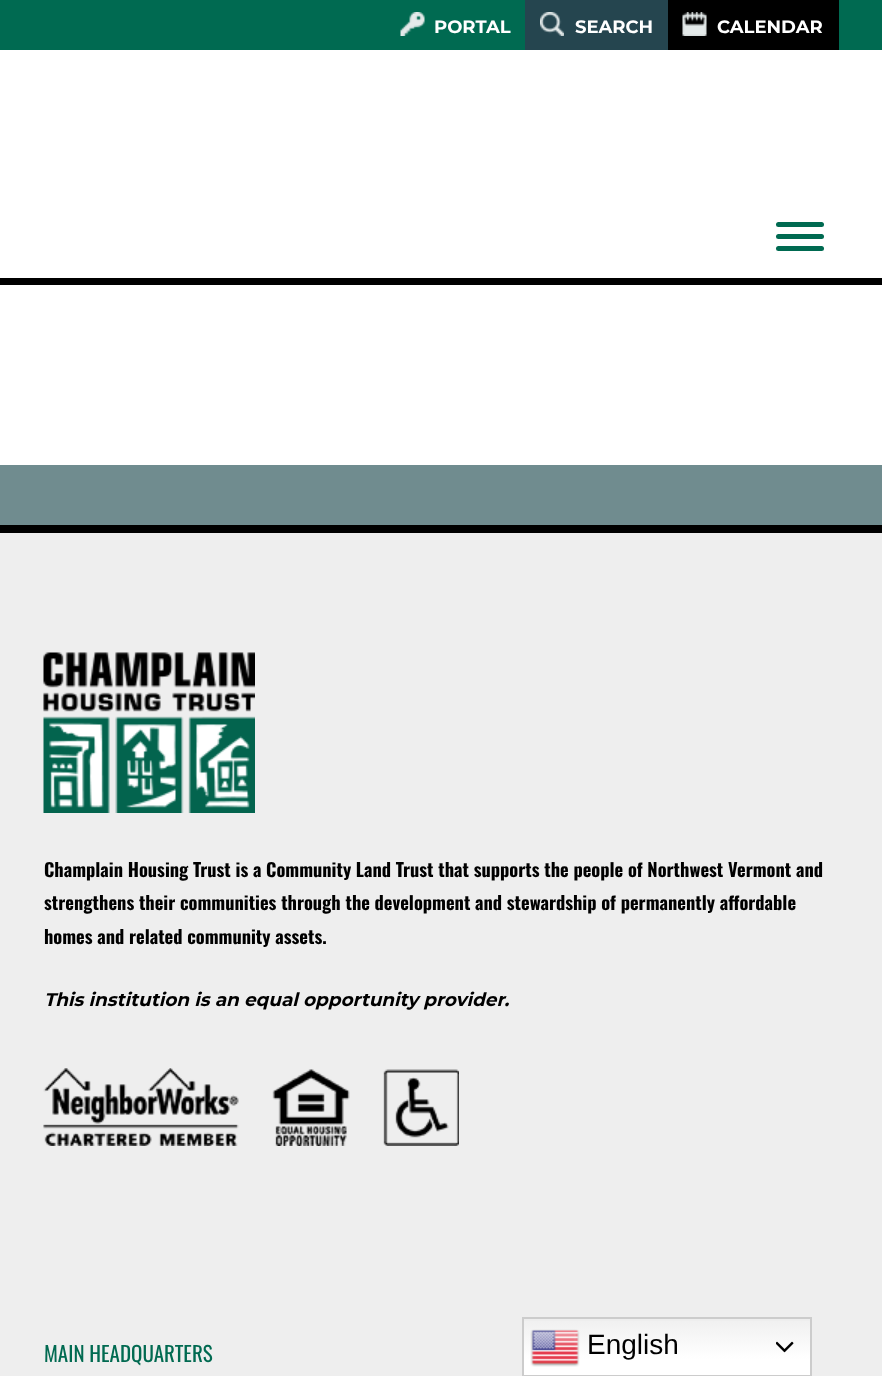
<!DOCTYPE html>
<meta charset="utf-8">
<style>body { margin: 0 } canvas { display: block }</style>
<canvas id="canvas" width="882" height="1376"></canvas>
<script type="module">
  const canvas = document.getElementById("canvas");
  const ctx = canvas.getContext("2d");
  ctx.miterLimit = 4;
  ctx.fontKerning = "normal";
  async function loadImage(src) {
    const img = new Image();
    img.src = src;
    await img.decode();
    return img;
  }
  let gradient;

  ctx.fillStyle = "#ffffff";
  ctx.fillRect(0, 0, 882, 1376);
  ctx.fillStyle = "#006a51";
  ctx.fillRect(0, 0, 882, 50);
  ctx.drawImage(await loadImage("img1.png"), 400, 12, 25, 24);
  ctx.font = "bold 18px Montserrat";
  ctx.fillStyle = "#ffffff";
  ctx.fillText("PORTAL", 434, 33);
  ctx.fillStyle = "#25454f";
  ctx.fillRect(525, 0, 143, 50);
  ctx.drawImage(await loadImage("img2.png"), 540, 12, 24, 24);
  ctx.fillStyle = "#ffffff";
  ctx.fillText("SEARCH", 575, 33);
  ctx.fillStyle = "#000000";
  ctx.fillRect(668, 0, 171, 50);
  ctx.drawImage(await loadImage("img3.png"), 682, 12, 25, 24);
  ctx.fillStyle = "#ffffff";
  ctx.fillText("CALENDAR", 717, 33);
  ctx.fillStyle = "#000000";
  ctx.fillRect(0, 278, 882, 7);
  ctx.fillStyle = "#006a51";
  ctx.beginPath();
  ctx.roundRect(776, 222, 48, 5, 2.5);
  ctx.fill();
  ctx.beginPath();
  ctx.roundRect(776, 234, 48, 5, 2.5);
  ctx.fill();
  ctx.beginPath();
  ctx.roundRect(776, 246, 48, 5, 2.5);
  ctx.fill();
  ctx.fillStyle = "#708c8f";
  ctx.fillRect(0, 465, 882, 60);
  ctx.fillStyle = "#eeeeee";
  ctx.fillRect(0, 533, 882, 843);
  ctx.fillStyle = "#000000";
  ctx.fillRect(0, 525, 882, 8);
  ctx.drawImage(await loadImage("img4.png"), 43, 652, 212, 161);
  ctx.font = "bold 18.4px Oswald";
  ctx.fillText("Champlain Housing Trust is a Community Land Trust that supports the people of Northwest Vermont and", 44, 877);
  ctx.fillText("strengthens their communities through the development and stewardship of permanently affordable", 44, 910);
  ctx.fillText("homes and related community assets.", 44, 944);
  ctx.font = "italic bold 18.4px Montserrat";
  ctx.fillText("This institution is an equal opportunity provider.", 44, 1006);
  ctx.drawImage(await loadImage("img5.png"), 43, 1068, 416, 78);
  ctx.font = "21px Oswald";
  ctx.fillStyle = "#016a51";
  ctx.fillText("MAIN HEADQUARTERS", 44, 1362);
  gradient = ctx.createLinearGradient(667, 1317, 667, 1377);
  gradient.addColorStop(0, "#efefef");
  gradient.addColorStop(0.7, "#ffffff");
  ctx.fillStyle = gradient;
  ctx.fillRect(524, 1321, 286, 54);
  ctx.strokeStyle = "#cccccc";
  ctx.lineWidth = 2;
  ctx.strokeRect(523, 1318, 288, 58);
  ctx.drawImage(await loadImage("img6.png"), 530, 1329, 50, 38);
  ctx.font = "28px Liberation Sans";
  ctx.fillStyle = "#000000";
  ctx.fillText("English", 587, 1354);
  ctx.drawImage(await loadImage("img7.png"), 776, 1341, 18, 12);
</script>
